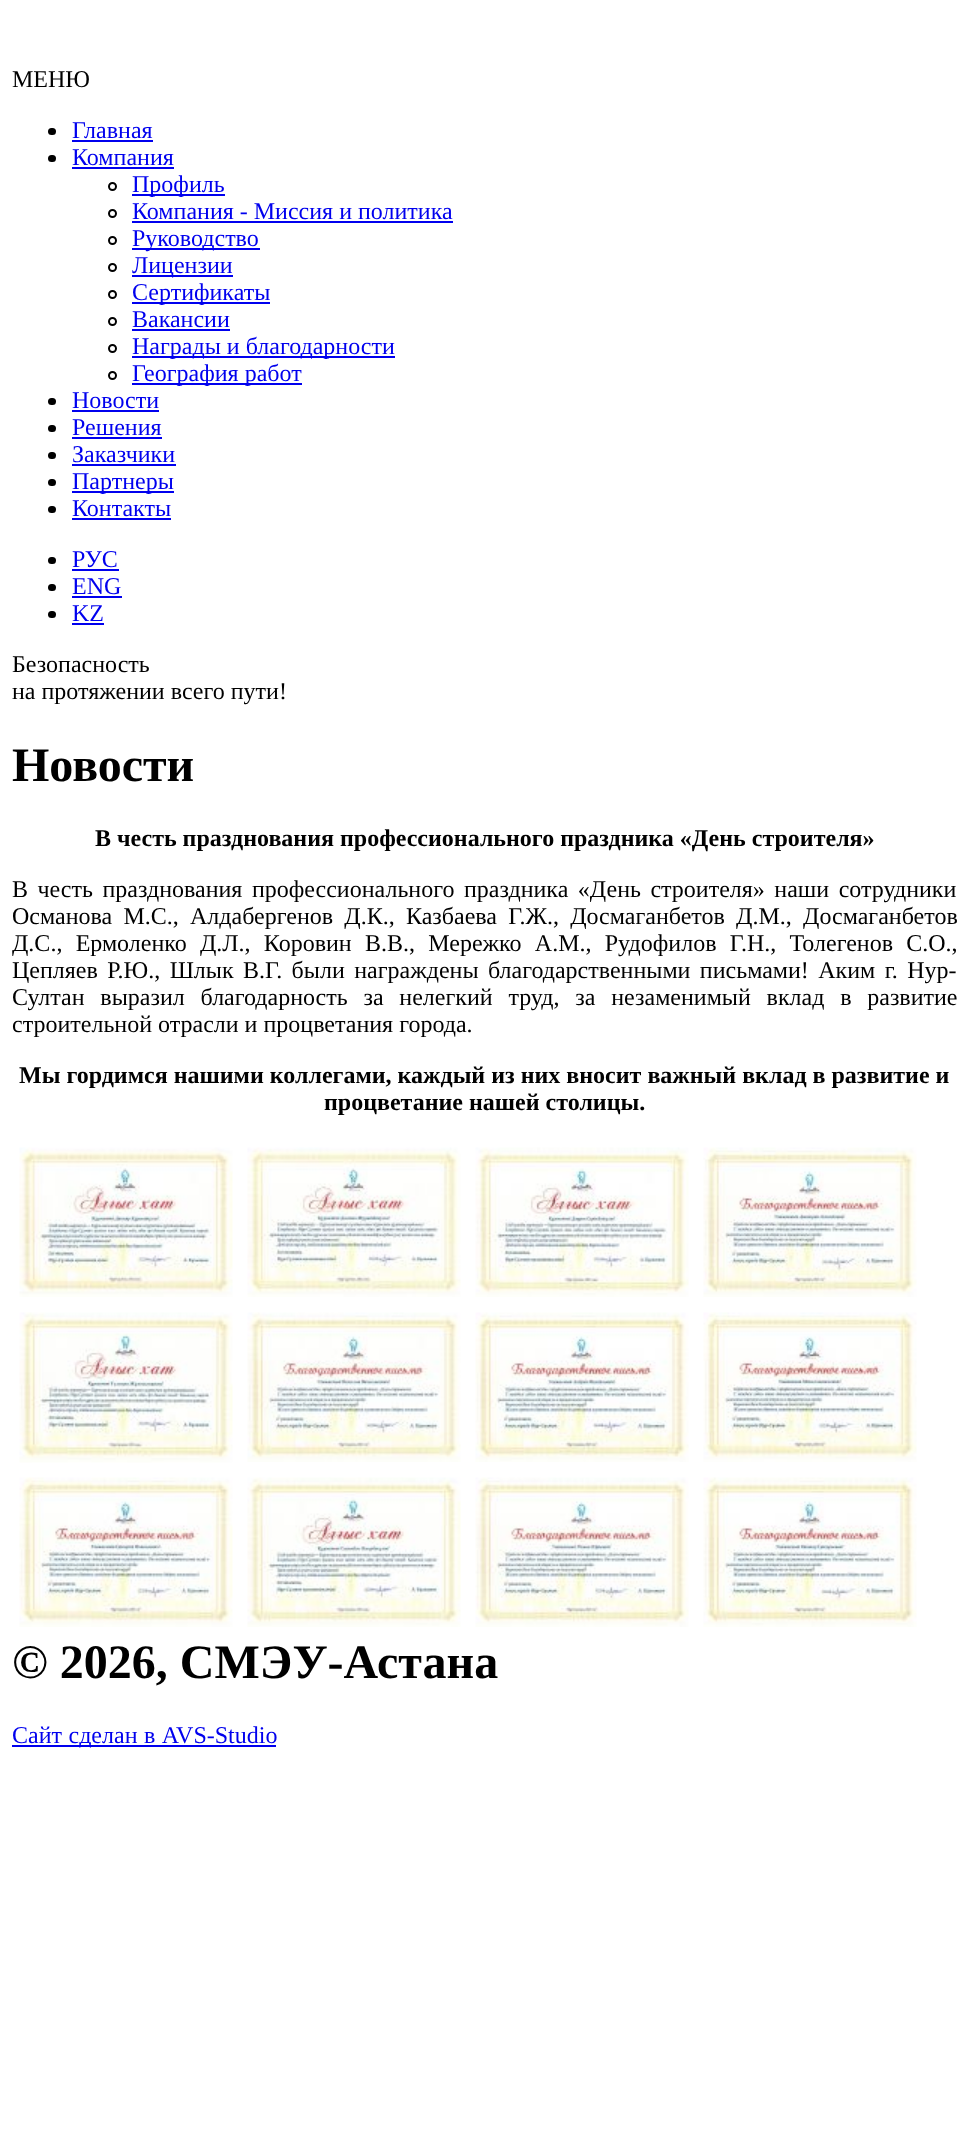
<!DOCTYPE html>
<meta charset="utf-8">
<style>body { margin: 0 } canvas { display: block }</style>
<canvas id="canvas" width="968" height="2133"></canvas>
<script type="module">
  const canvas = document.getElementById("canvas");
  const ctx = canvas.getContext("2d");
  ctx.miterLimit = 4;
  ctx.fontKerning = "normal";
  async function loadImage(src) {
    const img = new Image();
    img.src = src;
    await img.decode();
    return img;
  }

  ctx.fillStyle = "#ffffff";
  ctx.fillRect(0, 0, 968, 2133);
  ctx.font = "24px Liberation Serif";
  ctx.fillStyle = "#000000";
  ctx.fillText("МЕНЮ", 12, 87);
  ctx.beginPath();
  ctx.roundRect(48, 128, 8, 7, 3.5);
  ctx.fill();
  ctx.fillStyle = "#0000ee";
  ctx.fillText("Главная", 72, 138);
  ctx.fillRect(72, 140, 81, 2);
  ctx.fillStyle = "#000000";
  ctx.beginPath();
  ctx.roundRect(48, 155, 8, 7, 3.5);
  ctx.fill();
  ctx.fillStyle = "#0000ee";
  ctx.fillText("Компания", 72, 165);
  ctx.fillRect(72, 167, 102, 2);
  ctx.beginPath();
  ctx.arc(112.5, 186.5, 3.5, 0, Math.PI * 2);
  ctx.strokeStyle = "#000000";
  ctx.lineWidth = 2;
  ctx.stroke();
  ctx.fillRect(132, 194, 93, 2);
  ctx.fillText("Профиль", 132, 192);
  ctx.beginPath();
  ctx.arc(112.5, 213.5, 3.5, 0, Math.PI * 2);
  ctx.stroke();
  ctx.fillText("Компания - Миссия и политика", 132, 219);
  ctx.fillRect(132, 221, 321, 2);
  ctx.beginPath();
  ctx.arc(112.5, 240.5, 3.5, 0, Math.PI * 2);
  ctx.stroke();
  ctx.fillRect(132, 248, 128, 2);
  ctx.fillText("Руководство", 132, 246);
  ctx.beginPath();
  ctx.arc(112.5, 267.5, 3.5, 0, Math.PI * 2);
  ctx.stroke();
  ctx.fillRect(132, 275, 101, 2);
  ctx.fillText("Лицензии", 132, 273);
  ctx.beginPath();
  ctx.arc(112.5, 294.5, 3.5, 0, Math.PI * 2);
  ctx.stroke();
  ctx.fillRect(132, 302, 138, 2);
  ctx.fillText("Сертификаты", 132, 300);
  ctx.beginPath();
  ctx.arc(112.5, 321.5, 3.5, 0, Math.PI * 2);
  ctx.stroke();
  ctx.fillText("Вакансии", 132, 327);
  ctx.fillRect(132, 329, 98, 2);
  ctx.beginPath();
  ctx.arc(112.5, 348.5, 3.5, 0, Math.PI * 2);
  ctx.stroke();
  ctx.fillRect(132, 356, 263, 2);
  ctx.fillText("Награды и благодарности", 132, 354);
  ctx.beginPath();
  ctx.arc(112.5, 375.5, 3.5, 0, Math.PI * 2);
  ctx.stroke();
  ctx.fillRect(132, 383, 170, 2);
  ctx.fillText("География работ", 132, 381);
  ctx.fillStyle = "#000000";
  ctx.beginPath();
  ctx.roundRect(48, 398, 8, 7, 3.5);
  ctx.fill();
  ctx.fillStyle = "#0000ee";
  ctx.fillText("Новости", 72, 408);
  ctx.fillRect(72, 410, 87, 2);
  ctx.fillStyle = "#000000";
  ctx.beginPath();
  ctx.roundRect(48, 425, 8, 7, 3.5);
  ctx.fill();
  ctx.fillStyle = "#0000ee";
  ctx.fillText("Решения", 72, 435);
  ctx.fillRect(72, 437, 90, 2);
  ctx.fillStyle = "#000000";
  ctx.beginPath();
  ctx.roundRect(48, 452, 8, 7, 3.5);
  ctx.fill();
  ctx.fillStyle = "#0000ee";
  ctx.fillText("Заказчики", 72, 462);
  ctx.fillRect(72, 464, 104, 2);
  ctx.fillStyle = "#000000";
  ctx.beginPath();
  ctx.roundRect(48, 479, 8, 7, 3.5);
  ctx.fill();
  ctx.fillStyle = "#0000ee";
  ctx.fillRect(72, 491, 102, 2);
  ctx.fillText("Партнеры", 72, 489);
  ctx.fillStyle = "#000000";
  ctx.beginPath();
  ctx.roundRect(48, 506, 8, 7, 3.5);
  ctx.fill();
  ctx.fillStyle = "#0000ee";
  ctx.fillText("Контакты", 72, 516);
  ctx.fillRect(72, 518, 99, 2);
  ctx.fillStyle = "#000000";
  ctx.beginPath();
  ctx.roundRect(48, 557, 8, 7, 3.5);
  ctx.fill();
  ctx.fillStyle = "#0000ee";
  ctx.fillText("РУС", 72, 567);
  ctx.fillRect(72, 569, 47, 2);
  ctx.fillStyle = "#000000";
  ctx.beginPath();
  ctx.roundRect(48, 584, 8, 7, 3.5);
  ctx.fill();
  ctx.fillStyle = "#0000ee";
  ctx.fillText("ENG", 72, 594);
  ctx.fillRect(72, 596, 50, 2);
  ctx.fillStyle = "#000000";
  ctx.beginPath();
  ctx.roundRect(48, 611, 8, 7, 3.5);
  ctx.fill();
  ctx.fillStyle = "#0000ee";
  ctx.fillText("KZ", 72, 621);
  ctx.fillRect(72, 623, 32, 2);
  ctx.fillStyle = "#000000";
  ctx.fillText("Безопасность", 12, 672);
  ctx.fillText("на протяжении всего пути!", 12, 699);
  ctx.font = "bold 48px Liberation Serif";
  ctx.fillText("Новости", 12, 781);
  ctx.font = "bold 24px Liberation Serif";
  ctx.fillText("В честь празднования профессионального праздника «День строителя»", 95, 846);
  ctx.wordSpacing = "3.5px";
  ctx.font = "24px Liberation Serif";
  ctx.fillText("В честь празднования профессионального праздника «День строителя» наши сотрудники", 12, 897);
  ctx.wordSpacing = "5.25px";
  ctx.fillText("Османова М.С., Алдабергенов Д.К., Казбаева Г.Ж., Досмаганбетов Д.М., Досмаганбетов", 12, 924);
  ctx.wordSpacing = "7.25px";
  ctx.fillText("Д.С., Ермоленко Д.Л., Коровин В.В., Мережко А.М., Рудофилов Г.Н., Толегенов С.О.,", 12, 951);
  ctx.wordSpacing = "3.4px";
  ctx.fillText("Цепляев Р.Ю., Шлык В.Г. были награждены благодарственными письмами! Аким г. Нур-", 12, 978);
  ctx.wordSpacing = "9.75px";
  ctx.fillText("Султан выразил благодарность за нелегкий труд, за незаменимый вклад в развитие", 12, 1005);
  ctx.wordSpacing = "0px";
  ctx.fillText("строительной отрасли и процветания города.", 12, 1032);
  ctx.font = "bold 24px Liberation Serif";
  ctx.fillText("Мы гордимся нашими коллегами, каждый из них вносит важный вклад в развитие и", 19, 1083);
  ctx.fillText("процветание нашей столицы.", 324, 1110);
  ctx.drawImage(await loadImage("img1.png"), 19, 1147, 214, 150);
  ctx.drawImage(await loadImage("img2.png"), 247, 1147, 214, 150);
  ctx.drawImage(await loadImage("img3.png"), 475, 1147, 214, 150);
  ctx.drawImage(await loadImage("img4.png"), 703, 1147, 214, 150);
  ctx.drawImage(await loadImage("img5.png"), 19, 1312, 214, 151);
  ctx.drawImage(await loadImage("img6.png"), 247, 1312, 214, 150);
  ctx.drawImage(await loadImage("img7.png"), 475, 1312, 214, 150);
  ctx.drawImage(await loadImage("img8.png"), 703, 1312, 214, 150);
  ctx.drawImage(await loadImage("img9.png"), 19, 1477, 214, 150);
  ctx.drawImage(await loadImage("img10.png"), 247, 1477, 214, 150);
  ctx.drawImage(await loadImage("img11.png"), 475, 1477, 214, 150);
  ctx.drawImage(await loadImage("img12.png"), 703, 1477, 214, 150);
  ctx.font = "bold 48px Liberation Serif";
  ctx.fillText("© 2026, СМЭУ-Астана", 12, 1678);
  ctx.fillStyle = "#0000ee";
  ctx.fillRect(12, 1745, 264, 2);
  ctx.wordSpacing = "0.5px";
  ctx.font = "24px Liberation Serif";
  ctx.fillText("Сайт сделан в AVS-Studio", 12, 1743);
</script>
